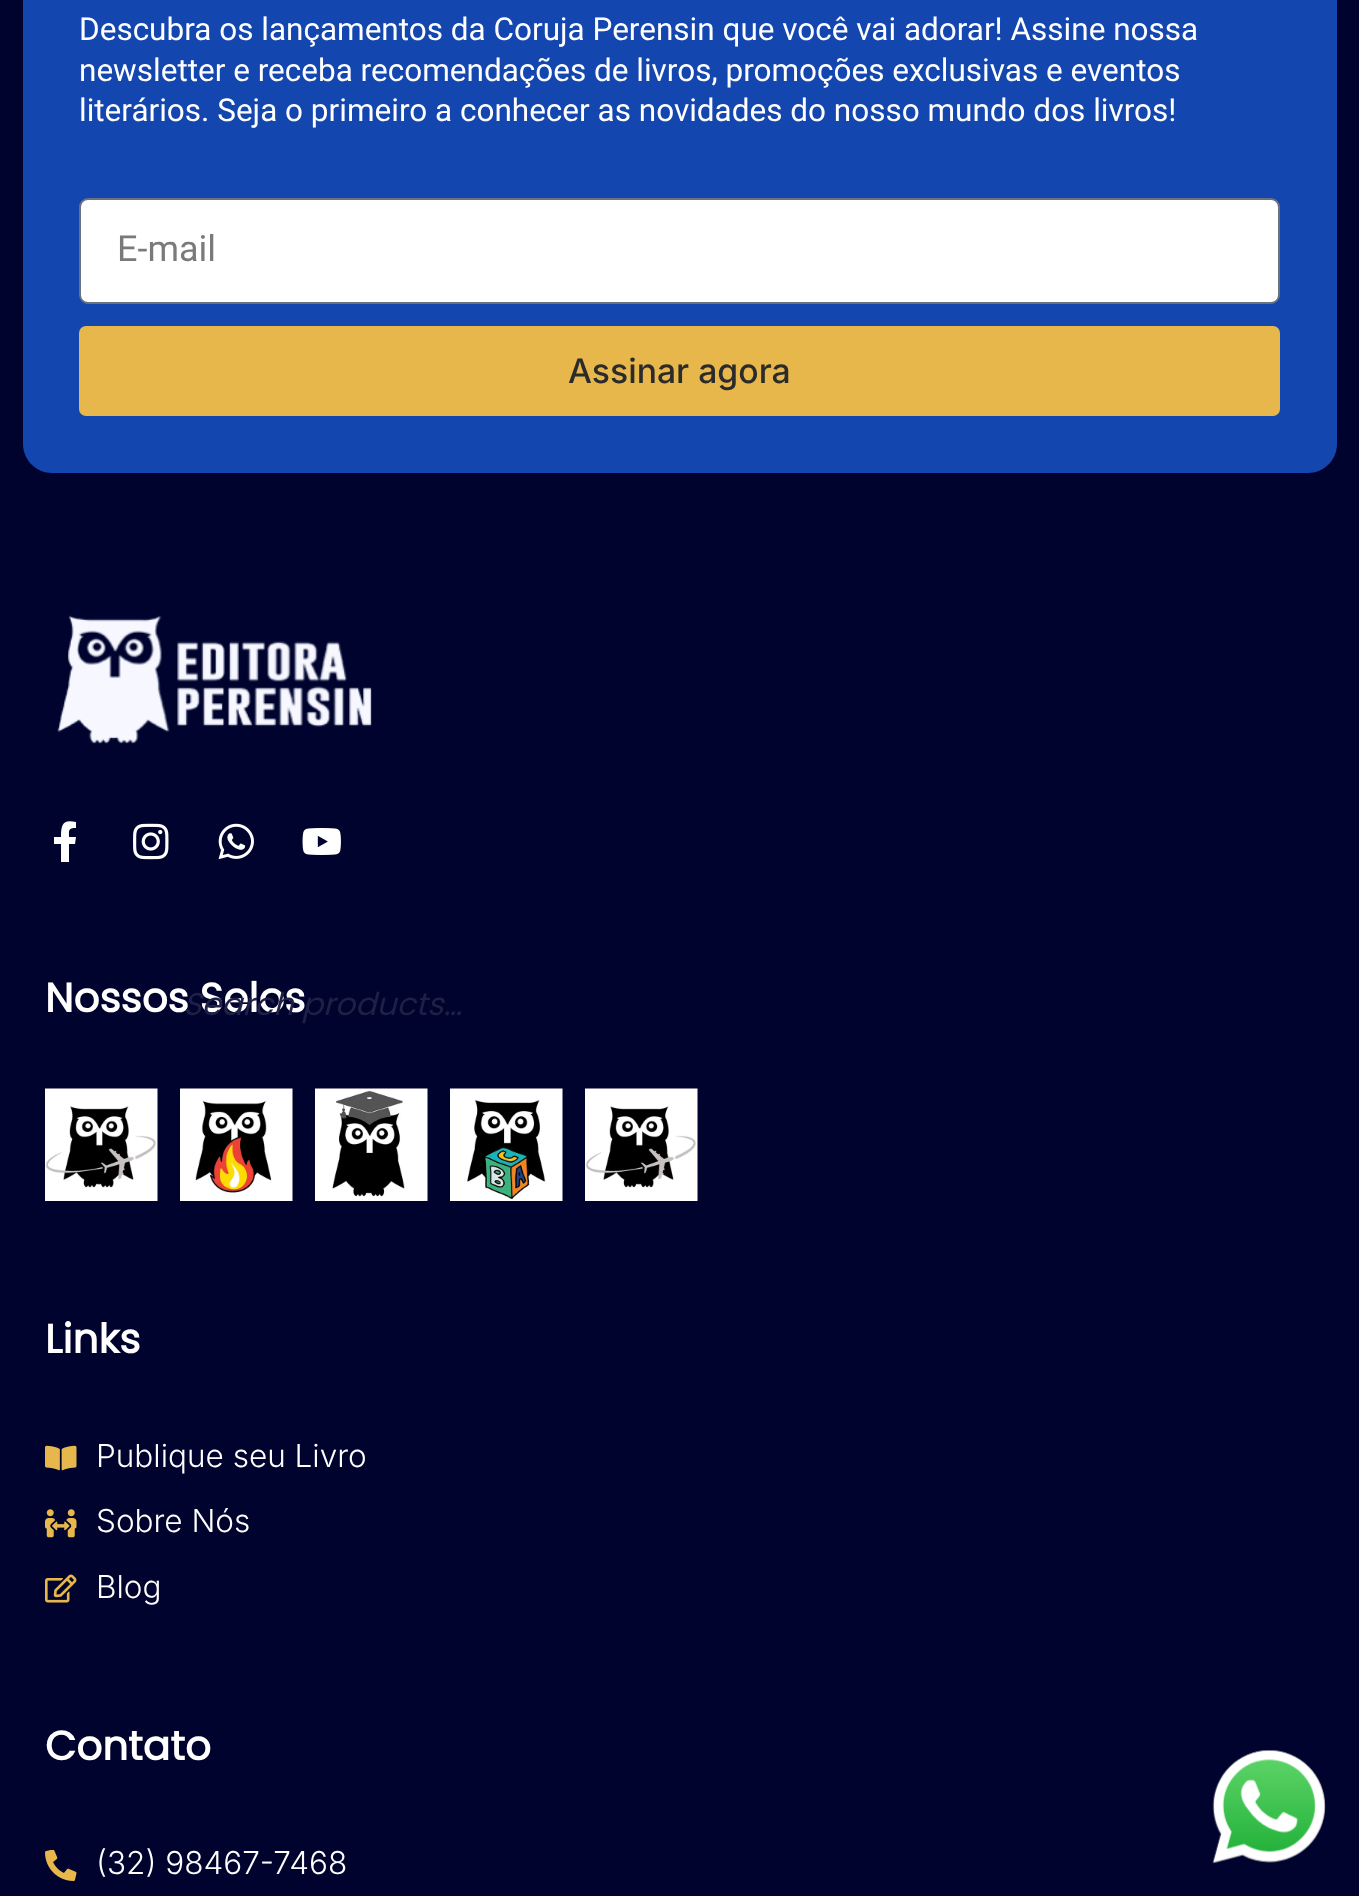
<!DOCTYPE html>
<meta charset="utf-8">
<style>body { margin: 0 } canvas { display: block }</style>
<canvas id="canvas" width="1359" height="1896"></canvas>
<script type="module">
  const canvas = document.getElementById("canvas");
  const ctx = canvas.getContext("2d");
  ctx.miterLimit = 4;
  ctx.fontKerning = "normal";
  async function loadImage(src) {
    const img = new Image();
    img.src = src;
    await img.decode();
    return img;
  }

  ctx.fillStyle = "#00032d";
  ctx.fillRect(0, 0, 1359, 1896);
  ctx.fillStyle = "#1346af";
  ctx.beginPath();
  ctx.moveTo(23, -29);
  ctx.lineTo(1337, -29);
  ctx.lineTo(1337, 444);
  ctx.bezierCurveTo(1337, 460, 1324, 473, 1308, 473);
  ctx.lineTo(52, 473);
  ctx.bezierCurveTo(36, 473, 23, 460, 23, 444);
  ctx.closePath();
  ctx.fill();
  ctx.font = "31.5px Roboto";
  ctx.fillStyle = "#ffffff";
  ctx.fillText("Descubra os lançamentos da Coruja Perensin que você vai adorar! Assine nossa", 79, 40);
  ctx.fillText("newsletter e receba recomendações de livros, promoções exclusivas e eventos", 79, 81);
  ctx.fillText("literários. Seja o primeiro a conhecer as novidades do nosso mundo dos livros!", 79, 121);
  ctx.beginPath();
  ctx.roundRect(80, 199, 1199, 104, 8);
  ctx.fill();
  ctx.strokeStyle = "#69727d";
  ctx.lineWidth = 2;
  ctx.stroke();
  ctx.font = "36px Roboto";
  ctx.fillStyle = "#797a7c";
  ctx.fillText("E-mail", 117, 261);
  ctx.fillStyle = "#e7b74c";
  ctx.beginPath();
  ctx.roundRect(79, 326, 1201, 90, 7);
  ctx.fill();
  ctx.font = "500 33.75px Inter";
  ctx.fillStyle = "#2b2b2b";
  ctx.fillText("Assinar agora", 568, 383);
  ctx.drawImage(await loadImage("img1.png"), 57, 615, 315, 129);
  ctx.fillStyle = "#ffffff";
  ctx.beginPath();
  ctx.moveTo(75, 844);
  ctx.lineTo(76, 837);
  ctx.lineTo(69, 837);
  ctx.bezierCurveTo(69, 830, 68, 828, 76, 828);
  ctx.lineTo(76, 822);
  ctx.bezierCurveTo(63, 819, 61, 824, 61, 837);
  ctx.lineTo(54, 837);
  ctx.lineTo(54, 844);
  ctx.lineTo(61, 844);
  ctx.lineTo(61, 862);
  ctx.lineTo(69, 862);
  ctx.lineTo(69, 844);
  ctx.closePath();
  ctx.fill();
  ctx.drawImage(await loadImage("img2.png"), 133, 823, 36, 37);
  ctx.drawImage(await loadImage("img3.png"), 218, 823, 36, 37);
  ctx.drawImage(await loadImage("img4.png"), 302, 828, 39, 27);
  ctx.font = "bold 40.5px Poppins";
  ctx.fillText("Nossos Selos", 45, 1012);
  ctx.drawImage(await loadImage("img5.png"), 45, 1088, 113, 113);
  ctx.drawImage(await loadImage("img6.png"), 180, 1088, 113, 113);
  ctx.drawImage(await loadImage("img7.png"), 315, 1088, 113, 113);
  ctx.drawImage(await loadImage("img8.png"), 450, 1088, 113, 113);
  ctx.drawImage(await loadImage("img9.png"), 585, 1088, 113, 113);
  ctx.fillText("Links", 45, 1353);
  ctx.drawImage(await loadImage("img10.png"), 45, 1445, 32, 26);
  ctx.font = "300 31.5px Inter";
  ctx.fillText("Publique seu Livro", 96, 1467);
  ctx.drawImage(await loadImage("img11.png"), 45, 1509, 32, 29);
  ctx.fillText("Sobre Nós", 96, 1532);
  ctx.drawImage(await loadImage("img12.png"), 45, 1574, 32, 29);
  ctx.fillText("Blog", 96, 1598);
  ctx.font = "bold 40.5px Poppins";
  ctx.fillText("Contato", 45, 1760);
  ctx.drawImage(await loadImage("img13.png"), 45, 1850, 32, 31);
  ctx.font = "300 31.5px Inter";
  ctx.fillText("(32) 98467-7468", 96, 1874);
  ctx.font = "italic 31.5px Poppins";
  ctx.fillStyle = "#1e2045";
  ctx.fillText("Search products…", 183, 1015);
  ctx.drawImage(await loadImage("img14.png"), 1212, 1750, 114, 114);
</script>
